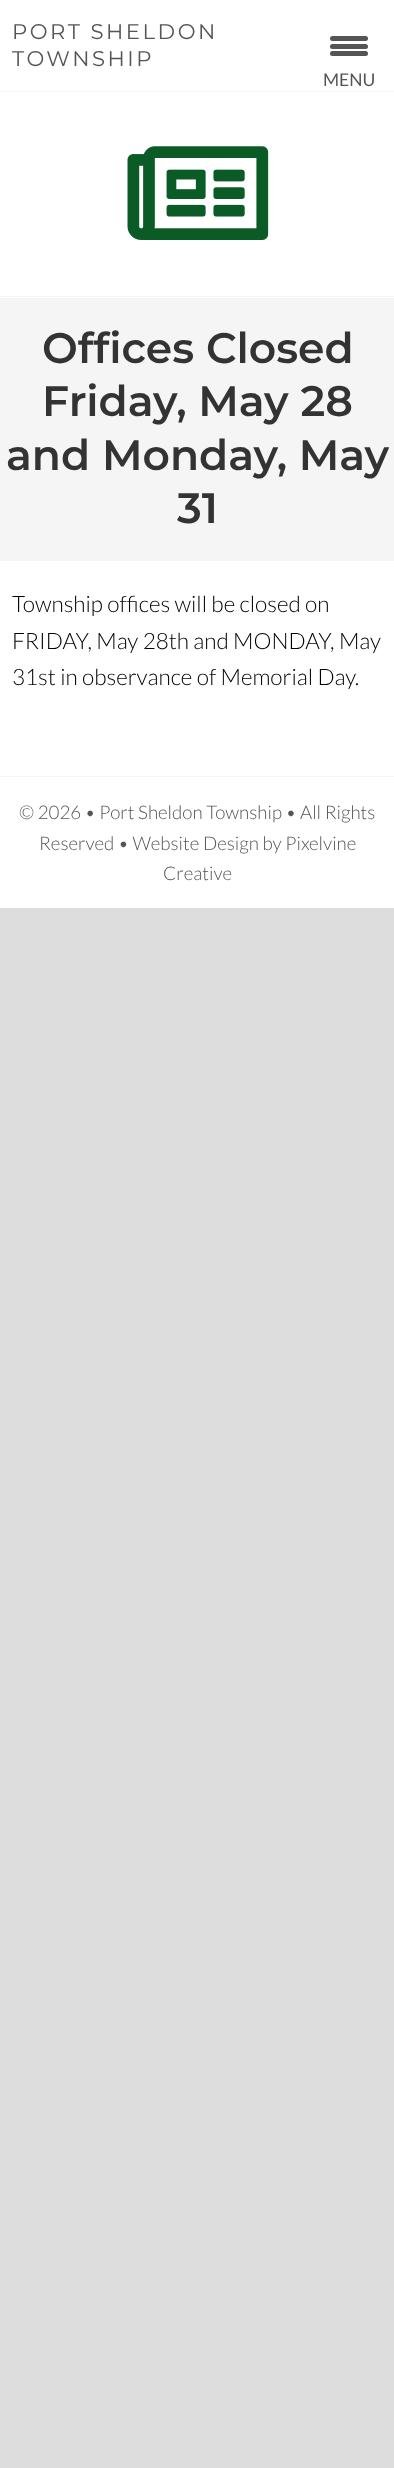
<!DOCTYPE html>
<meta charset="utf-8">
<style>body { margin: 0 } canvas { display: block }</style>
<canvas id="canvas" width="394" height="2468"></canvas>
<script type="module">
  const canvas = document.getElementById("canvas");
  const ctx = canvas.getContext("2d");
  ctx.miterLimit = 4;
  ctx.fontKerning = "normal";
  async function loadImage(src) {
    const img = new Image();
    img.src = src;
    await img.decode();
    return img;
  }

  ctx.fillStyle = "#dddddd";
  ctx.fillRect(0, 0, 394, 2468);
  ctx.fillStyle = "#ffffff";
  ctx.fillRect(0, 0, 394, 908);
  ctx.fillStyle = "#f5f5f5";
  ctx.fillRect(0, 91, 394, 1);
  ctx.letterSpacing = "2.5px";
  ctx.font = "21.25px Montserrat";
  ctx.fillStyle = "#555555";
  ctx.fillText("PORT SHELDON", 12, 39);
  ctx.fillText("TOWNSHIP", 12, 66);
  ctx.fillStyle = "#f5f5f5";
  ctx.fillRect(0, 296, 394, 1);
  ctx.drawImage(await loadImage("img1.png"), 127, 146, 142, 94);
  ctx.fillRect(0, 298, 394, 263);
  ctx.letterSpacing = "0px";
  ctx.font = "600 42.5px Montserrat";
  ctx.fillStyle = "#333333";
  ctx.fillText("Offices Closed", 42, 363);
  ctx.fillText("Friday, May 28", 42, 416);
  ctx.fillText("and Monday, May", 6, 470);
  ctx.fillText("31", 177, 523);
  ctx.font = "300 22.5px Lato";
  ctx.fillStyle = "#000000";
  ctx.fillText("Township offices will be closed on", 12, 612);
  ctx.fillText("FRIDAY, May 28th and MONDAY, May", 12, 649);
  ctx.fillText("31st in observance of Memorial Day.", 12, 685);
  ctx.fillStyle = "#f5f5f5";
  ctx.fillRect(0, 776, 394, 1);
  ctx.font = "300 18.75px Lato";
  ctx.fillStyle = "#555555";
  ctx.fillText("© 2026 • Port Sheldon Township • All Rights", 19, 819);
  ctx.fillText("Reserved • Website Design by Pixelvine", 39, 850);
  ctx.fillText("Creative", 163, 880);
  ctx.beginPath();
  ctx.roundRect(330, 44, 38, 5, 2.5);
  ctx.fill();
  ctx.beginPath();
  ctx.roundRect(330, 36, 38, 5, 2.5);
  ctx.fill();
  ctx.beginPath();
  ctx.roundRect(330, 51, 38, 5, 2.5);
  ctx.fill();
  ctx.font = "17.5px Lato";
  ctx.fillText("MENU", 323, 86);
</script>
